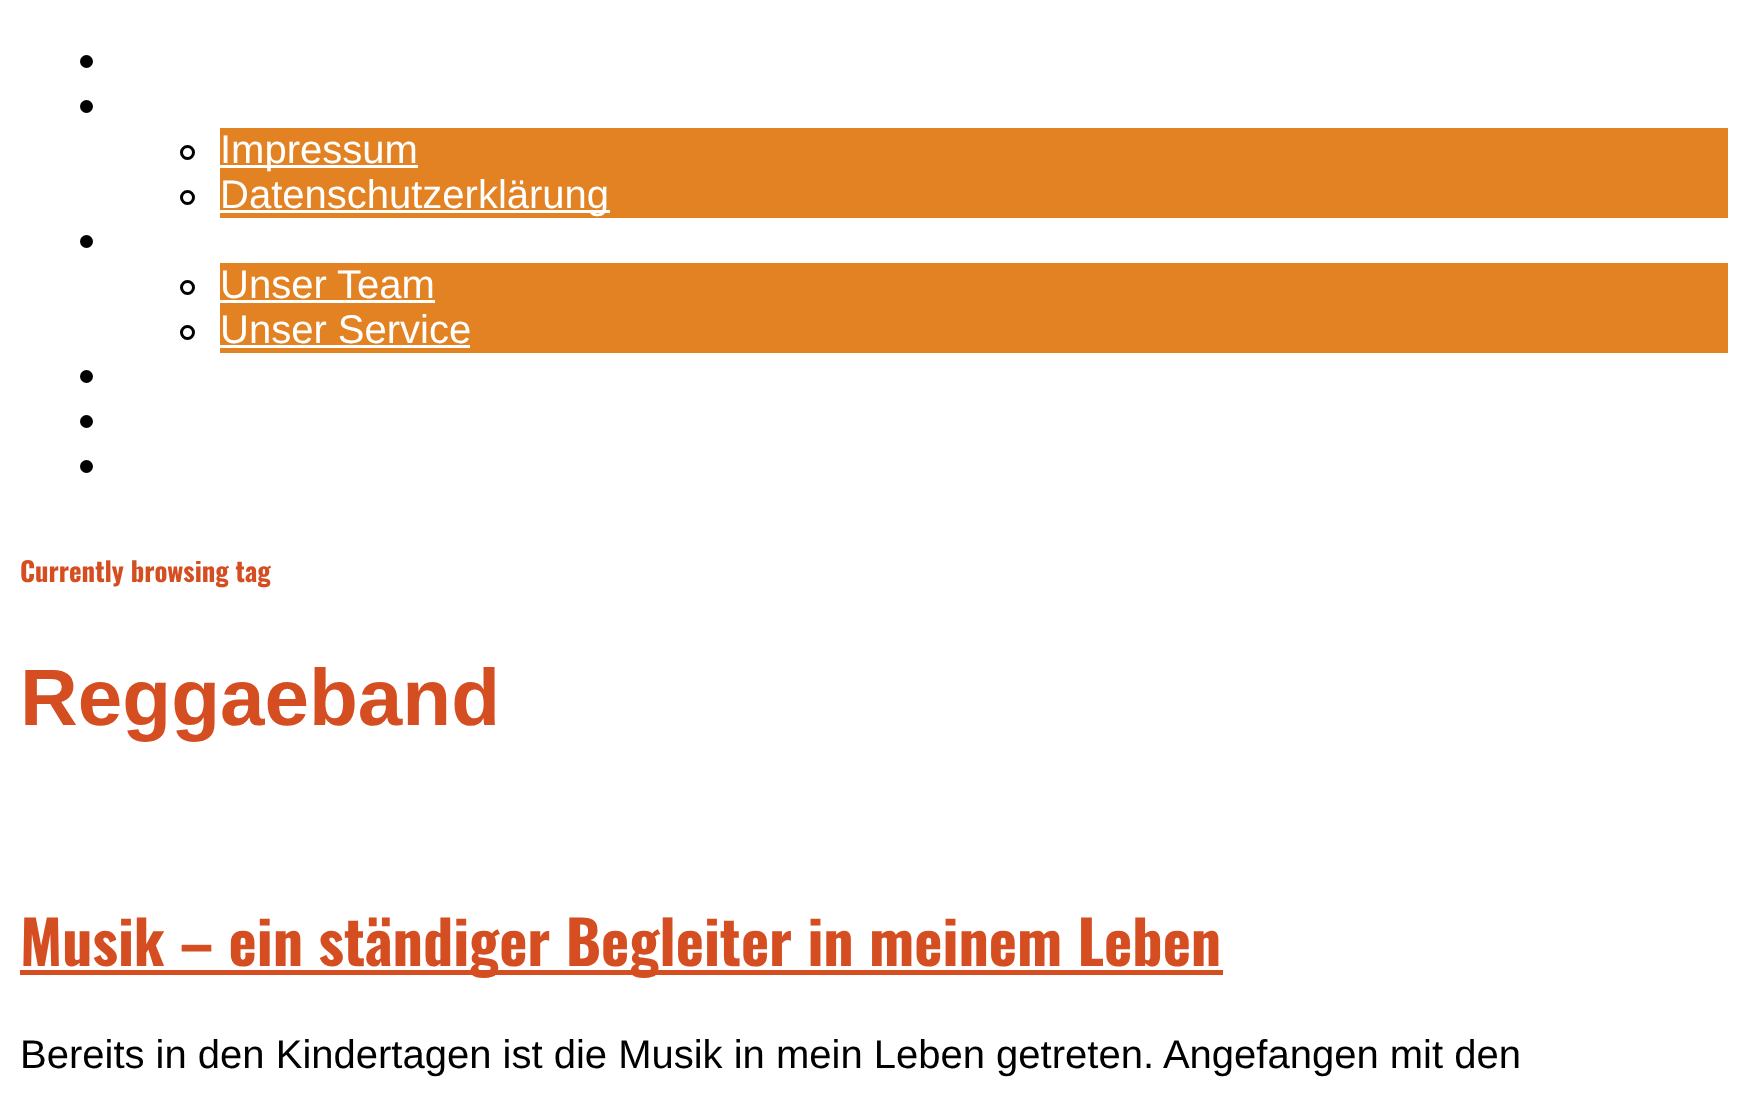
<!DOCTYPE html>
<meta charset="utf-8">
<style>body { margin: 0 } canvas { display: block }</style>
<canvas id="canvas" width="1746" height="1099"></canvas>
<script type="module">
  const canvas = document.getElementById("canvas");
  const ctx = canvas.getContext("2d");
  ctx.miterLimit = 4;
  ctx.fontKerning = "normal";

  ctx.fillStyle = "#ffffff";
  ctx.fillRect(0, 0, 1746, 1099);
  ctx.fillStyle = "#000000";
  ctx.beginPath();
  ctx.arc(86.5, 61.5, 6.5, 0, Math.PI * 2);
  ctx.fill();
  ctx.beginPath();
  ctx.arc(86.5, 106.5, 6.5, 0, Math.PI * 2);
  ctx.fill();
  ctx.fillStyle = "#e28222";
  ctx.fillRect(220, 128, 1508, 90);
  ctx.beginPath();
  ctx.arc(187.5, 152.5, 6, 0, Math.PI * 2);
  ctx.strokeStyle = "#000000";
  ctx.lineWidth = 3;
  ctx.stroke();
  ctx.fillStyle = "#ffffff";
  ctx.fillRect(220, 165, 198, 3);
  ctx.font = "40px Liberation Sans";
  ctx.fillText("Impressum", 220, 163);
  ctx.beginPath();
  ctx.arc(187.5, 197.5, 6, 0, Math.PI * 2);
  ctx.stroke();
  ctx.fillRect(220, 210, 390, 3);
  ctx.fillText("Datenschutzerklärung", 220, 208);
  ctx.fillStyle = "#000000";
  ctx.beginPath();
  ctx.arc(86.5, 241.5, 6.5, 0, Math.PI * 2);
  ctx.fill();
  ctx.fillStyle = "#e28222";
  ctx.fillRect(220, 263, 1508, 90);
  ctx.beginPath();
  ctx.arc(187.5, 287.5, 6, 0, Math.PI * 2);
  ctx.stroke();
  ctx.fillStyle = "#ffffff";
  ctx.fillText("Unser Team", 220, 298);
  ctx.fillRect(220, 300, 215, 3);
  ctx.beginPath();
  ctx.arc(187.5, 332.5, 6, 0, Math.PI * 2);
  ctx.stroke();
  ctx.fillText("Unser Service", 220, 343);
  ctx.fillRect(220, 345, 250, 3);
  ctx.fillStyle = "#000000";
  ctx.beginPath();
  ctx.arc(86.5, 376.5, 6.5, 0, Math.PI * 2);
  ctx.fill();
  ctx.beginPath();
  ctx.arc(86.5, 421.5, 6.5, 0, Math.PI * 2);
  ctx.fill();
  ctx.beginPath();
  ctx.arc(86.5, 466.5, 6.5, 0, Math.PI * 2);
  ctx.fill();
  ctx.font = "bold 26.75px Oswald";
  ctx.fillStyle = "#d54e21";
  ctx.fillText("Currently browsing tag", 20, 582);
  ctx.font = "bold 80px Liberation Sans";
  ctx.fillText("Reggaeband", 20, 725);
  ctx.fillRect(20, 970, 1203, 5);
  ctx.font = "bold 60px Oswald";
  ctx.fillText("Musik – ein ständiger Begleiter in meinem Leben", 20, 966);
  ctx.font = "40px Liberation Sans";
  ctx.fillStyle = "#000000";
  ctx.fillText("Bereits in den Kindertagen ist die Musik in mein Leben getreten. Angefangen mit den", 20, 1068);
</script>
